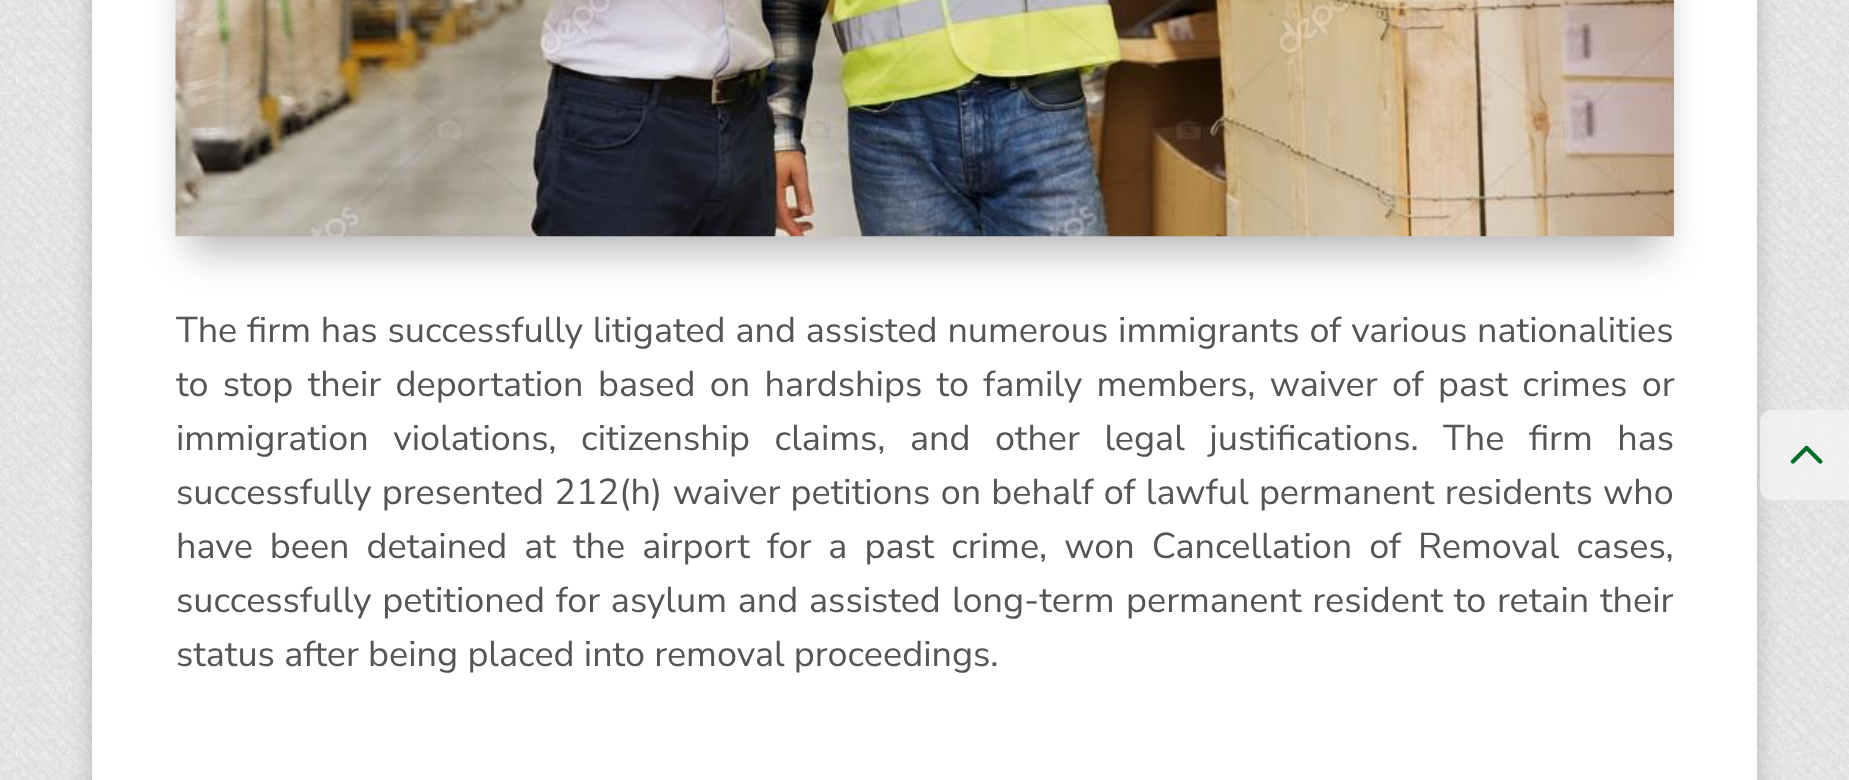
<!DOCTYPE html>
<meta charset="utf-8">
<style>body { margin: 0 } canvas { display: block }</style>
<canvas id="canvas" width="1849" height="780"></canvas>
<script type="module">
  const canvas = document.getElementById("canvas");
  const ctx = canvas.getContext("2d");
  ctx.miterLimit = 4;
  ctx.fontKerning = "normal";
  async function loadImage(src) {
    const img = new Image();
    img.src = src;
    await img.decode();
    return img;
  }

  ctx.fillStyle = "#ffffff";
  ctx.fillRect(0, 0, 1849, 780);
  ctx.drawImage(await loadImage("img1.png"), 0, 0, 1849, 780);
  ctx.fillStyle = "rgba(0, 0, 0, 0.2)";
  ctx.filter = "blur(11px)";
  ctx.beginPath();
  ctx.rect(92, -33, 1665, 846);
  ctx.fill();
  ctx.filter = "none";
  ctx.fillStyle = "#ffffff";
  ctx.fillRect(92, 0, 1665, 780);
  ctx.fillStyle = "rgba(0, 0, 0, 0.3)";
  ctx.filter = "blur(20px)";
  ctx.beginPath();
  ctx.rect(189, -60, 1472, 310);
  ctx.fill();
  ctx.filter = "none";
  ctx.drawImage(await loadImage("img2.png"), 175, 0, 1499, 237);
  ctx.wordSpacing = "0.6px";
  ctx.font = "36px Nunito Sans";
  ctx.fillStyle = "#555555";
  ctx.fillText("The firm has successfully litigated and assisted numerous immigrants of various nationalities", 176, 342);
  ctx.wordSpacing = "5.1px";
  ctx.fillText("to stop their deportation based on hardships to family members, waiver of past crimes or", 176, 396);
  ctx.wordSpacing = "15.25px";
  ctx.fillText("immigration violations, citizenship claims, and other legal justifications. The firm has", 176, 450);
  ctx.wordSpacing = "1px";
  ctx.fillText("successfully presented 212(h) waiver petitions on behalf of lawful permanent residents who", 176, 504);
  ctx.wordSpacing = "7.75px";
  ctx.fillText("have been detained at the airport for a past crime, won Cancellation of Removal cases,", 176, 558);
  ctx.wordSpacing = "1.5px";
  ctx.fillText("successfully petitioned for asylum and assisted", 176, 612);
  ctx.wordSpacing = "0px";
  ctx.fillText("long-term", 952, 612);
  ctx.wordSpacing = "1.5px";
  ctx.fillText("permanent resident to retain their", 1126, 612);
  ctx.wordSpacing = "0px";
  ctx.fillText("status after being placed into removal proceedings.", 176, 666);
  ctx.fillStyle = "rgba(244, 244, 244, 0.75)";
  ctx.beginPath();
  ctx.moveTo(1771, 410);
  ctx.lineTo(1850, 410);
  ctx.lineTo(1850, 500);
  ctx.lineTo(1771, 500);
  ctx.bezierCurveTo(1765, 500, 1760, 495, 1760, 489);
  ctx.lineTo(1760, 421);
  ctx.bezierCurveTo(1760, 415, 1765, 410, 1771, 410);
  ctx.closePath();
  ctx.fill();
  ctx.drawImage(await loadImage("img3.png"), 1790, 445, 33, 19);
</script>
